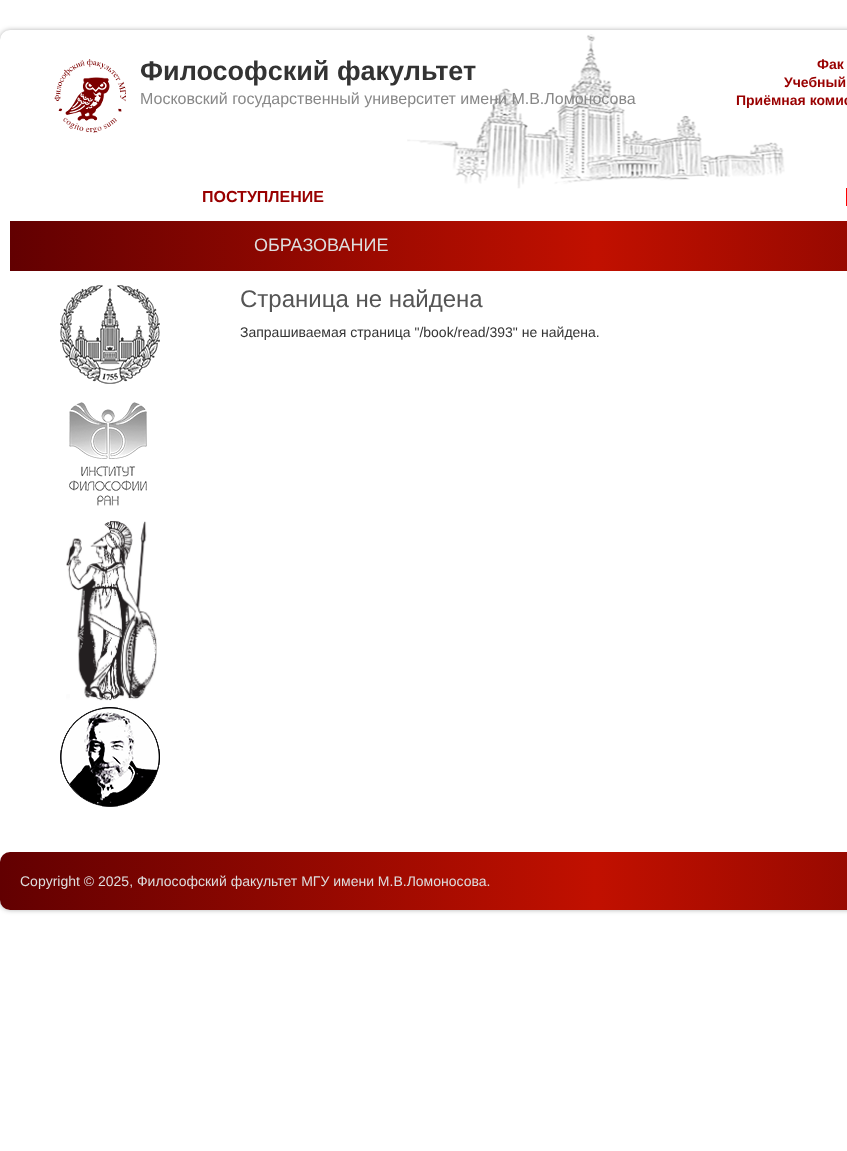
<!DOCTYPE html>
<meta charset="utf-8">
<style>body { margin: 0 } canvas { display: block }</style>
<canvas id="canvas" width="847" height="1151"></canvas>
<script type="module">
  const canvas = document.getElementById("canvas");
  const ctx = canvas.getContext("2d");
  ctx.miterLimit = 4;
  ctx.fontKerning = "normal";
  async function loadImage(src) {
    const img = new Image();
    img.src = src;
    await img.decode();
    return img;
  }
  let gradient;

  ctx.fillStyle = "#ffffff";
  ctx.fillRect(0, 0, 847, 1151);
  ctx.fillStyle = "rgba(0, 0, 0, 0.3)";
  ctx.filter = "blur(2.5px)";
  ctx.beginPath();
  ctx.roundRect(0, 30, 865, 880, 10);
  ctx.fill();
  ctx.filter = "none";
  ctx.fillStyle = "#ffffff";
  ctx.beginPath();
  ctx.roundRect(0, 30, 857, 880, 10);
  ctx.fill();
  ctx.drawImage(await loadImage("img1.png"), 54, 59, 72, 74);
  ctx.drawImage(await loadImage("img2.png"), 407, 34, 378, 155);
  ctx.font = "bold 27px Liberation Sans";
  ctx.fillStyle = "#333333";
  ctx.fillText("Философский факультет", 140, 80);
  ctx.font = "16px Liberation Sans";
  ctx.fillStyle = "#888888";
  ctx.fillText("Московский государственный университет имени М.В.Ломоносова", 140, 104);
  ctx.font = "bold 14px Liberation Sans";
  ctx.fillStyle = "#990000";
  ctx.fillText("Фак", 817, 69);
  ctx.fillText("Учебный", 784, 87);
  ctx.fillText("Приёмная комис", 736, 105);
  ctx.font = "bold 16px Liberation Sans";
  ctx.fillText("ПОСТУПЛЕНИЕ", 202, 202);
  ctx.fillStyle = "#fe0000";
  ctx.fillRect(846, 188, 1, 18);
  gradient = ctx.createLinearGradient(10, 246, 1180, 246);
  gradient.addColorStop(0, "#620001");
  gradient.addColorStop(0.5, "#c11000");
  gradient.addColorStop(1, "#620001");
  ctx.fillStyle = gradient;
  ctx.fillRect(10, 221, 837, 50);
  ctx.font = "18px Liberation Sans";
  ctx.fillStyle = "#dedede";
  ctx.fillText("ОБРАЗОВАНИЕ", 254, 251);
  ctx.drawImage(await loadImage("img3.png"), 60, 285, 100, 99);
  ctx.drawImage(await loadImage("img4.png"), 69, 402, 78, 104);
  ctx.drawImage(await loadImage("img5.png"), 66, 521, 91, 180);
  ctx.drawImage(await loadImage("img6.png"), 60, 707, 100, 100);
  ctx.font = "24px Liberation Sans";
  ctx.fillStyle = "#555555";
  ctx.fillText("Страница не найдена", 240, 307);
  ctx.font = "14px Liberation Sans";
  ctx.fillStyle = "#333333";
  ctx.fillText("Запрашиваемая страница \"/book/read/393\" не найдена.", 240, 337);
  gradient = ctx.createLinearGradient(0, 881, 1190, 881);
  gradient.addColorStop(0, "#620001");
  gradient.addColorStop(0.5, "#c11000");
  gradient.addColorStop(1, "#620001");
  ctx.fillStyle = gradient;
  ctx.beginPath();
  ctx.roundRect(0, 852, 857, 58, 10);
  ctx.fill();
  ctx.fillStyle = "#dedede";
  ctx.fillText("Copyright © 2025, Философский факультет МГУ имени М.В.Ломоносова.", 20, 886);
</script>
